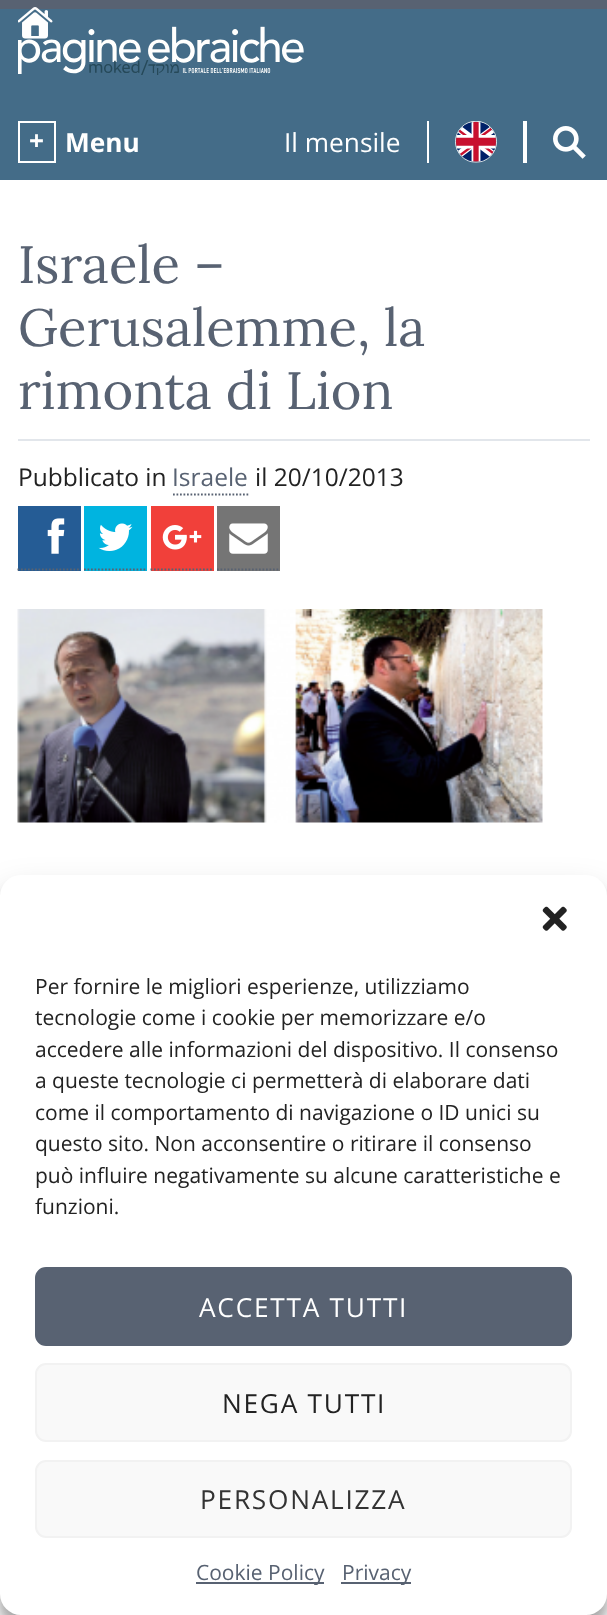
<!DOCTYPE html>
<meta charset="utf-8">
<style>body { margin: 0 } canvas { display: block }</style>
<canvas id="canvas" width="607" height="1615"></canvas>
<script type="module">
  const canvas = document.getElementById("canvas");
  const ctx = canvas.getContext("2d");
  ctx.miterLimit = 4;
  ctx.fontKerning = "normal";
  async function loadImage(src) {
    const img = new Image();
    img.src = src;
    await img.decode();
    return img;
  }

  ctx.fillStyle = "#ffffff";
  ctx.fillRect(0, 0, 607, 1615);
  ctx.fillStyle = "#586272";
  ctx.fillRect(0, 0, 607, 9);
  ctx.fillStyle = "#446c88";
  ctx.fillRect(0, 9, 607, 171);
  ctx.drawImage(await loadImage("img2.png"), 18, 26, 286, 49);
  ctx.drawImage(await loadImage("img1.png"), 18, 7, 35, 32);
  ctx.strokeStyle = "#ffffff";
  ctx.lineWidth = 2;
  ctx.strokeRect(19, 122, 36, 40);
  ctx.font = "bold 26.25px Open Sans";
  ctx.fillStyle = "#ffffff";
  ctx.fillText("+", 29, 150);
  ctx.fillText("Menu", 65, 152);
  ctx.fillRect(427, 121, 2, 42);
  ctx.font = "26.25px Open Sans";
  ctx.fillText("Il mensile", 284, 152);
  ctx.drawImage(await loadImage("img3.png"), 455, 121, 42, 42);
  ctx.fillRect(523, 121, 4, 42);
  ctx.drawImage(await loadImage("img4.png"), 553, 126, 33, 33);
  ctx.font = "52.5px Lora";
  ctx.fillStyle = "#586272";
  ctx.fillText("Israele –", 18, 283);
  ctx.fillText("Gerusalemme, la", 18, 346);
  ctx.fillText("rimonta di Lion", 18, 409);
  ctx.fillStyle = "#e2e6eb";
  ctx.fillRect(18, 439, 572, 2);
  ctx.font = "24.5px Open Sans";
  ctx.fillStyle = "#222222";
  ctx.fillText("Pubblicato in", 18, 486);
  ctx.fillStyle = "#586272";
  ctx.fillText("Israele", 172, 486);
  ctx.beginPath();
  ctx.moveTo(173, 494.5);
  ctx.lineTo(248.5, 494.5);
  ctx.strokeStyle = "#586272";
  ctx.lineWidth = 1.8;
  ctx.setLineDash([1.75, 1.75]);
  ctx.stroke();
  ctx.fillStyle = "#222222";
  ctx.fillText("il 20/10/2013", 255, 486);
  ctx.fillStyle = "#255c95";
  ctx.fillRect(18, 506, 63, 65);
  ctx.beginPath();
  ctx.moveTo(17.5, 569.5);
  ctx.lineTo(80.5, 569.5);
  ctx.stroke();
  ctx.drawImage(await loadImage("img5.png"), 47, 518, 18, 36);
  ctx.fillStyle = "#00b4e0";
  ctx.fillRect(84, 506, 63, 65);
  ctx.beginPath();
  ctx.moveTo(84, 569.5);
  ctx.lineTo(147, 569.5);
  ctx.stroke();
  ctx.drawImage(await loadImage("img6.png"), 98, 523, 35, 28);
  ctx.fillStyle = "#f1403a";
  ctx.fillRect(151, 506, 63, 65);
  ctx.beginPath();
  ctx.moveTo(150.5, 569.5);
  ctx.lineTo(213.5, 569.5);
  ctx.stroke();
  ctx.drawImage(await loadImage("img7.png"), 162, 525, 40, 25);
  ctx.fillStyle = "#757575";
  ctx.fillRect(217, 506, 63, 65);
  ctx.beginPath();
  ctx.moveTo(217, 569.5);
  ctx.lineTo(280, 569.5);
  ctx.stroke();
  ctx.drawImage(await loadImage("img8.png"), 229, 523, 39, 31);
  ctx.drawImage(await loadImage("img9.png"), 17, 609, 526, 214);
  ctx.fillStyle = "rgba(0, 0, 0, 0.23)";
  ctx.filter = "blur(5px)";
  ctx.beginPath();
  ctx.roundRect(0, 886, 607, 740, 21);
  ctx.fill();
  ctx.filter = "none";
  ctx.fillStyle = "rgba(0, 0, 0, 0.19)";
  ctx.filter = "blur(17.5px)";
  ctx.beginPath();
  ctx.roundRect(0, 893, 607, 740, 21);
  ctx.fill();
  ctx.filter = "none";
  ctx.fillStyle = "#ffffff";
  ctx.beginPath();
  ctx.roundRect(0, 875, 607, 740, 21);
  ctx.fill();
  ctx.drawImage(await loadImage("img10.png"), 542, 906, 25, 25);
  ctx.font = "21px Open Sans";
  ctx.fillStyle = "#222222";
  ctx.fillText("Per fornire le migliori esperienze, utilizziamo", 35, 994);
  ctx.fillText("tecnologie come i cookie per memorizzare e/o", 35, 1025);
  ctx.fillText("accedere alle informazioni del dispositivo. Il consenso", 35, 1057);
  ctx.fillText("a queste tecnologie ci permetterà di elaborare dati", 35, 1088);
  ctx.fillText("come il comportamento di navigazione o ID unici su", 35, 1120);
  ctx.fillText("questo sito. Non acconsentire o ritirare il consenso", 35, 1151);
  ctx.fillText("può influire negativamente su alcune caratteristiche e", 35, 1183);
  ctx.fillText("funzioni.", 35, 1214);
  ctx.fillStyle = "#586272";
  ctx.beginPath();
  ctx.roundRect(36, 1268, 535, 77, 10);
  ctx.fill();
  ctx.lineWidth = 2;
  ctx.setLineDash([]);
  ctx.stroke();
  ctx.letterSpacing = "1.75px";
  ctx.font = "26.25px Open Sans";
  ctx.fillStyle = "#ffffff";
  ctx.fillText("ACCETTA TUTTI", 199, 1317);
  ctx.fillStyle = "#f9f9f9";
  ctx.beginPath();
  ctx.roundRect(36, 1364, 535, 77, 10);
  ctx.fill();
  ctx.strokeStyle = "#f2f2f2";
  ctx.stroke();
  ctx.fillStyle = "#222222";
  ctx.fillText("NEGA TUTTI", 222, 1413);
  ctx.fillStyle = "#f9f9f9";
  ctx.beginPath();
  ctx.roundRect(36, 1461, 535, 76, 10);
  ctx.fill();
  ctx.stroke();
  ctx.fillStyle = "#333333";
  ctx.fillText("PERSONALIZZA", 200, 1509);
  ctx.fillStyle = "#586272";
  ctx.fillRect(196, 1582, 128, 2);
  ctx.letterSpacing = "0px";
  ctx.font = "21px Open Sans";
  ctx.fillText("Cookie Policy", 196, 1580);
  ctx.fillRect(341, 1582, 70, 2);
  ctx.fillText("Privacy", 342, 1580);
</script>
